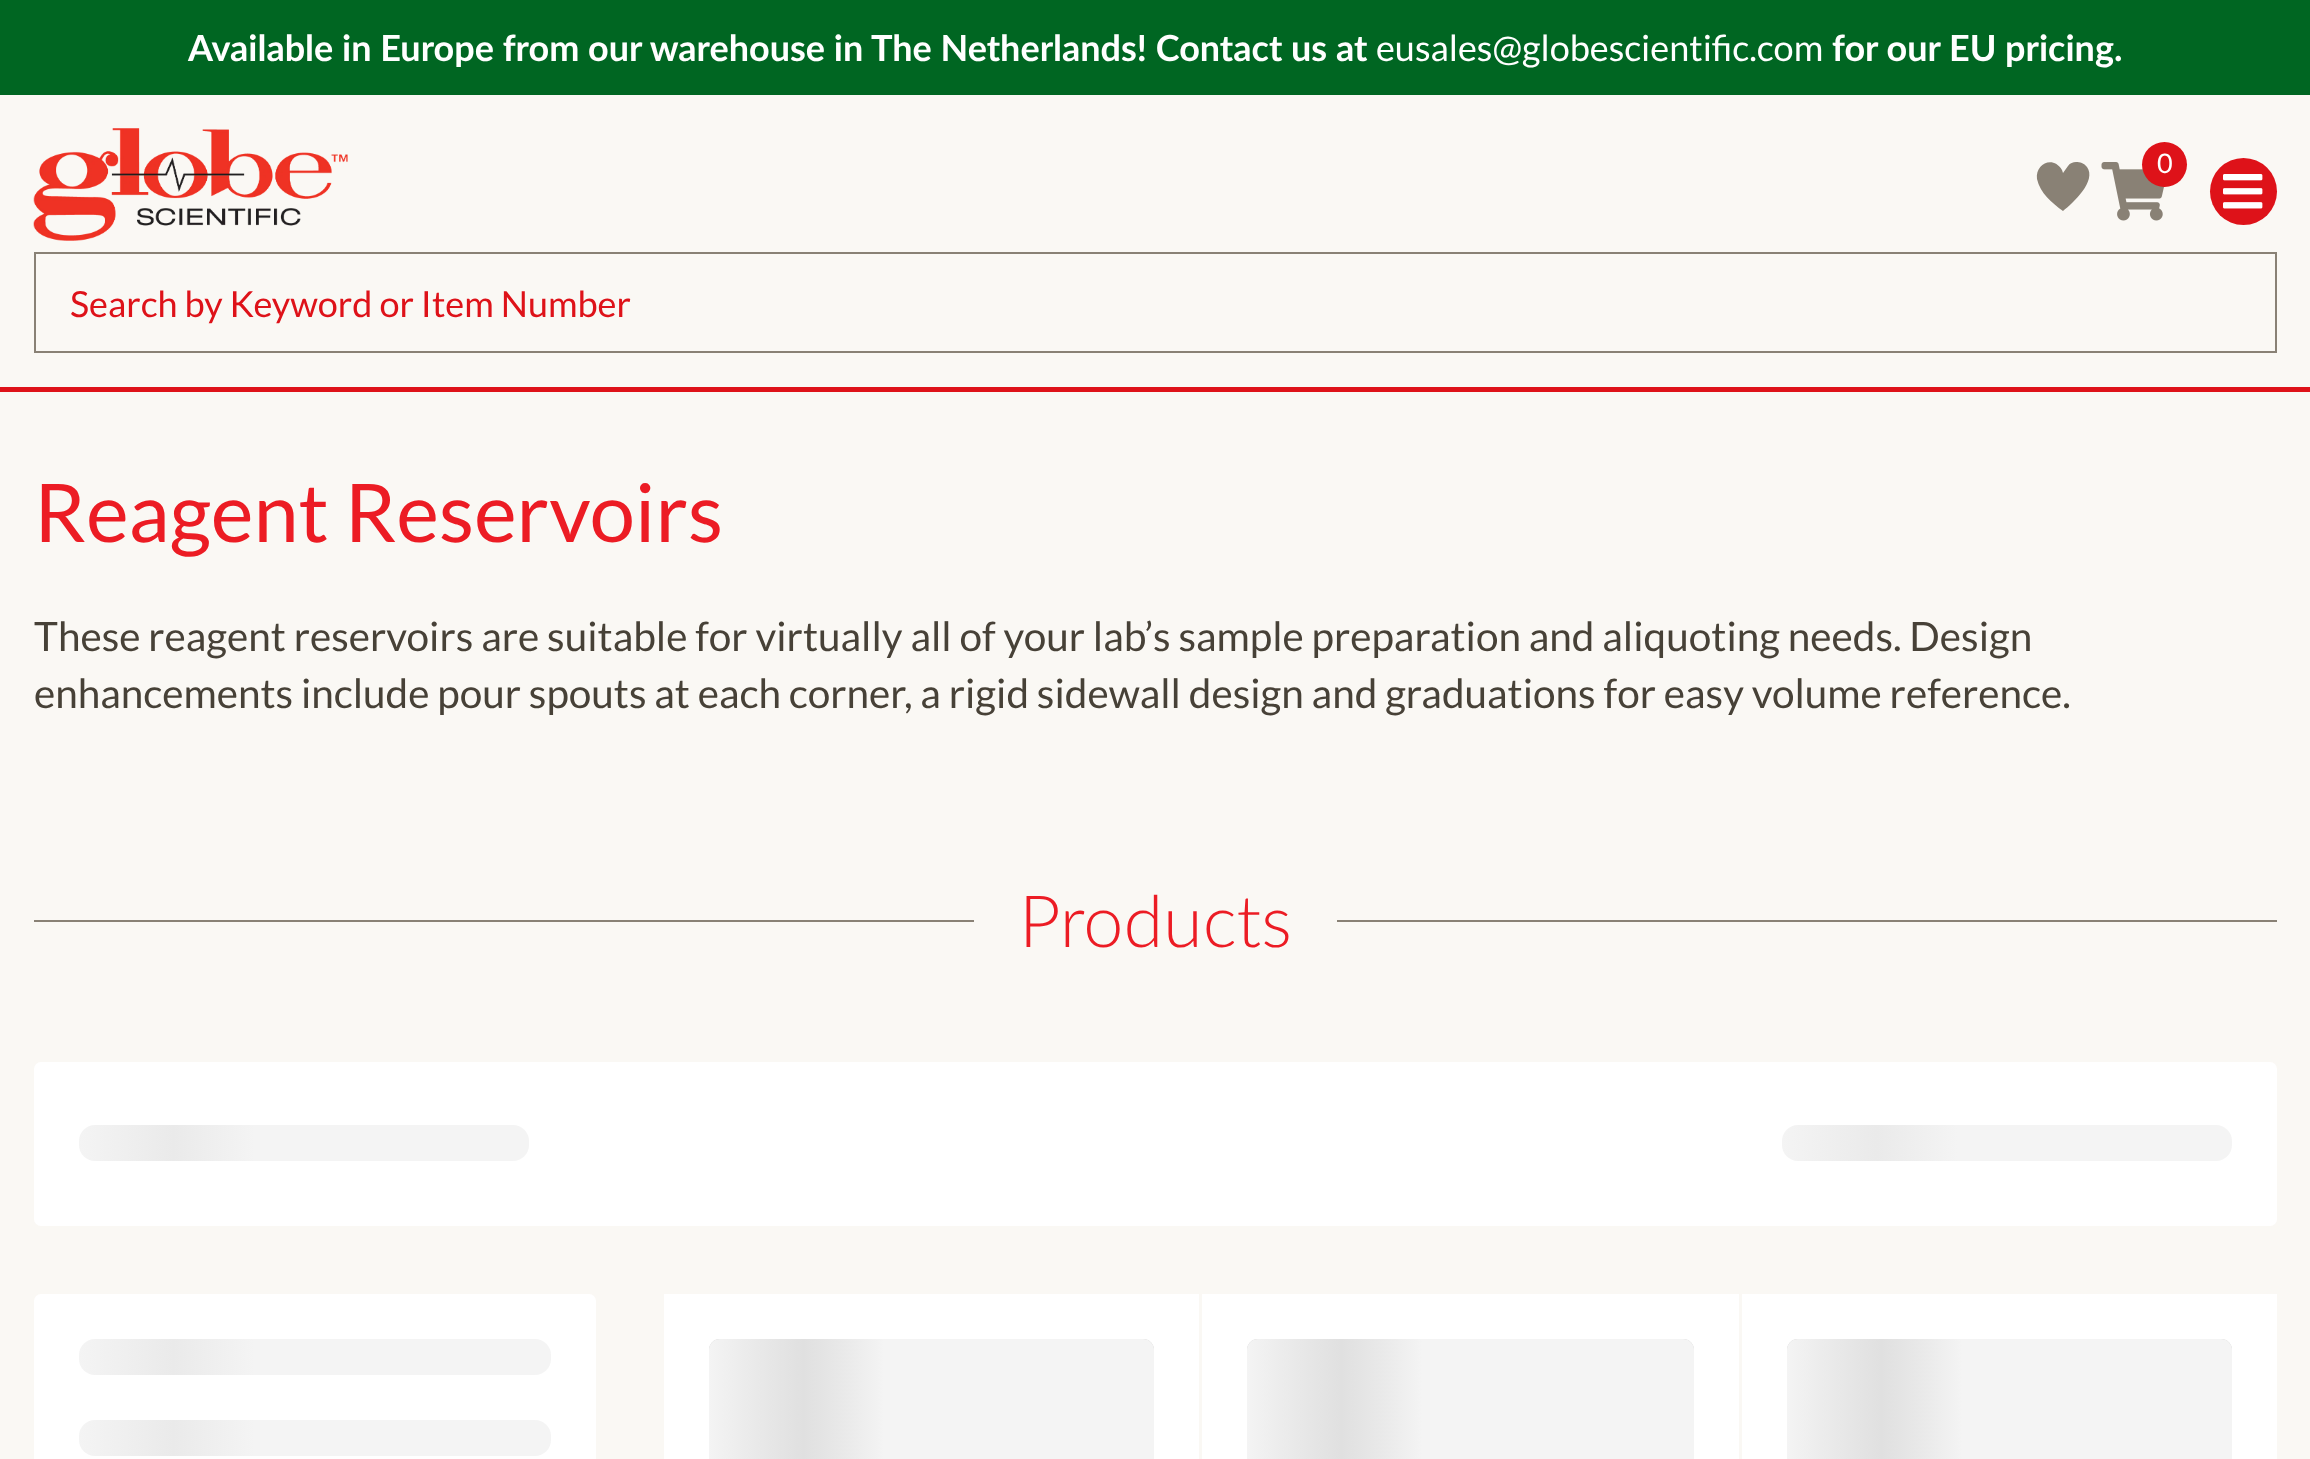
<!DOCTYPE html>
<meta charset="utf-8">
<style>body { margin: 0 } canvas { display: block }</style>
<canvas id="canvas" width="2310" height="1459"></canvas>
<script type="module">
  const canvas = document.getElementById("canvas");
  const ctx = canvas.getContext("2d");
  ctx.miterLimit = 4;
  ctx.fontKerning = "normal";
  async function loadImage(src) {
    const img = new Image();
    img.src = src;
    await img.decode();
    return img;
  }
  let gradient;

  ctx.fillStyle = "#faf8f4";
  ctx.fillRect(0, 0, 2310, 1459);
  ctx.fillStyle = "#de1219";
  ctx.fillRect(0, 387, 2310, 5);
  ctx.fillStyle = "#006622";
  ctx.fillRect(0, 0, 2310, 95);
  ctx.font = "bold 36px Lato";
  ctx.fillStyle = "#ffffff";
  ctx.fillText("Available in Europe from our warehouse in The Netherlands! Contact us at", 188, 61);
  ctx.font = "36px Lato";
  ctx.fillText("eusales@globescientific.com", 1376, 61);
  ctx.font = "bold 36px Lato";
  ctx.fillText("for our EU pricing.", 1832, 61);
  ctx.drawImage(await loadImage("img1.png"), 33, 128, 315, 113);
  ctx.fillStyle = "#898175";
  ctx.beginPath();
  ctx.moveTo(2037, 179);
  ctx.bezierCurveTo(2035, 164, 2053, 155, 2062, 170);
  ctx.lineTo(2063, 173);
  ctx.lineTo(2068, 166);
  ctx.bezierCurveTo(2070, 163, 2073, 162, 2076, 162);
  ctx.bezierCurveTo(2080, 162, 2084, 163, 2087, 167);
  ctx.bezierCurveTo(2097, 181, 2073, 203, 2063, 211);
  ctx.bezierCurveTo(2052, 203, 2040, 193, 2037, 179);
  ctx.closePath();
  ctx.fill();
  ctx.drawImage(await loadImage("img2.png"), 2101, 162, 63, 59);
  ctx.fillStyle = "#de1219";
  ctx.beginPath();
  ctx.arc(2164.5, 164.5, 22.5, 0, Math.PI * 2);
  ctx.fill();
  ctx.font = "27px Lato";
  ctx.fillStyle = "#ffffff";
  ctx.fillText("0", 2157, 173);
  ctx.fillStyle = "#de1219";
  ctx.beginPath();
  ctx.arc(2243.5, 191.5, 33.5, 0, Math.PI * 2);
  ctx.fill();
  ctx.drawImage(await loadImage("img3.png"), 2223, 174, 40, 35);
  ctx.strokeStyle = "#898175";
  ctx.lineWidth = 2;
  ctx.strokeRect(35, 253, 2241, 99);
  ctx.font = "36px Lato";
  ctx.fillText("Search by Keyword or Item Number", 70, 317);
  ctx.font = "81px Lato";
  ctx.fillStyle = "#ec1c24";
  ctx.fillText("Reagent Reservoirs", 34, 542);
  ctx.font = "40.5px Lato";
  ctx.fillStyle = "#474137";
  ctx.fillText("These reagent reservoirs are suitable for virtually all of your lab’s sample preparation and aliquoting needs. Design", 34, 651);
  ctx.fillText("enhancements include pour spouts at each corner, a rigid sidewall design and graduations for easy volume reference.", 34, 708);
  ctx.fillStyle = "#898175";
  ctx.fillRect(34, 920, 940, 2);
  ctx.font = "300 72px Lato";
  ctx.fillStyle = "#ec1c24";
  ctx.fillText("Products", 1019, 947);
  ctx.fillStyle = "#898175";
  ctx.fillRect(1337, 920, 940, 2);
  ctx.fillStyle = "#ffffff";
  ctx.beginPath();
  ctx.roundRect(34, 1062, 2243, 164, 7);
  ctx.fill();
  gradient = ctx.createLinearGradient(79, 1143, 1429, 1143);
  gradient.addColorStop(0, "#f4f4f4");
  gradient.addColorStop(0.07, "#eaeaea");
  gradient.addColorStop(0.13, "#f4f4f4");
  ctx.fillStyle = gradient;
  ctx.beginPath();
  ctx.roundRect(79, 1125, 450, 36, 16);
  ctx.fill();
  gradient = ctx.createLinearGradient(1782, 1143, 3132, 1143);
  gradient.addColorStop(0, "#f4f4f4");
  gradient.addColorStop(0.07, "#eaeaea");
  gradient.addColorStop(0.13, "#f4f4f4");
  ctx.fillStyle = gradient;
  ctx.beginPath();
  ctx.roundRect(1782, 1125, 450, 36, 16);
  ctx.fill();
  ctx.fillStyle = "#ffffff";
  ctx.beginPath();
  ctx.roundRect(34, 1294, 562, 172, 7);
  ctx.fill();
  gradient = ctx.createLinearGradient(79, 1357, 1429, 1357);
  gradient.addColorStop(0, "#f4f4f4");
  gradient.addColorStop(0.07, "#eaeaea");
  gradient.addColorStop(0.13, "#f4f4f4");
  ctx.fillStyle = gradient;
  ctx.beginPath();
  ctx.roundRect(79, 1339, 472, 36, 16);
  ctx.fill();
  gradient = ctx.createLinearGradient(79, 1438, 1429, 1438);
  gradient.addColorStop(0, "#f4f4f4");
  gradient.addColorStop(0.07, "#eaeaea");
  gradient.addColorStop(0.13, "#f4f4f4");
  ctx.fillStyle = gradient;
  ctx.beginPath();
  ctx.roundRect(79, 1420, 472, 36, 16);
  ctx.fill();
  ctx.fillStyle = "#ffffff";
  ctx.fillRect(664, 1294, 535, 165);
  ctx.fillStyle = "#cccccc";
  ctx.beginPath();
  ctx.roundRect(709, 1339, 445, 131, 11);
  ctx.fill();
  gradient = ctx.createLinearGradient(709, 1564, 2059, 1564);
  gradient.addColorStop(0, "#f4f4f4");
  gradient.addColorStop(0.07, "rgba(229, 229, 229, 0.8)");
  gradient.addColorStop(0.13, "#f4f4f4");
  ctx.fillStyle = gradient;
  ctx.beginPath();
  ctx.roundRect(709, 1339, 445, 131, 11);
  ctx.fill();
  ctx.fillStyle = "#ffffff";
  ctx.fillRect(1202, 1294, 537, 165);
  ctx.fillStyle = "#cccccc";
  ctx.beginPath();
  ctx.roundRect(1247, 1339, 447, 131, 11);
  ctx.fill();
  gradient = ctx.createLinearGradient(1247, 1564, 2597, 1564);
  gradient.addColorStop(0, "#f4f4f4");
  gradient.addColorStop(0.07, "rgba(229, 229, 229, 0.8)");
  gradient.addColorStop(0.13, "#f4f4f4");
  ctx.fillStyle = gradient;
  ctx.beginPath();
  ctx.roundRect(1247, 1339, 447, 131, 11);
  ctx.fill();
  ctx.fillStyle = "#ffffff";
  ctx.fillRect(1742, 1294, 535, 165);
  ctx.fillStyle = "#cccccc";
  ctx.beginPath();
  ctx.roundRect(1787, 1339, 445, 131, 11);
  ctx.fill();
  gradient = ctx.createLinearGradient(1787, 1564, 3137, 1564);
  gradient.addColorStop(0, "#f4f4f4");
  gradient.addColorStop(0.07, "rgba(229, 229, 229, 0.8)");
  gradient.addColorStop(0.13, "#f4f4f4");
  ctx.fillStyle = gradient;
  ctx.beginPath();
  ctx.roundRect(1787, 1339, 445, 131, 11);
  ctx.fill();
</script>
